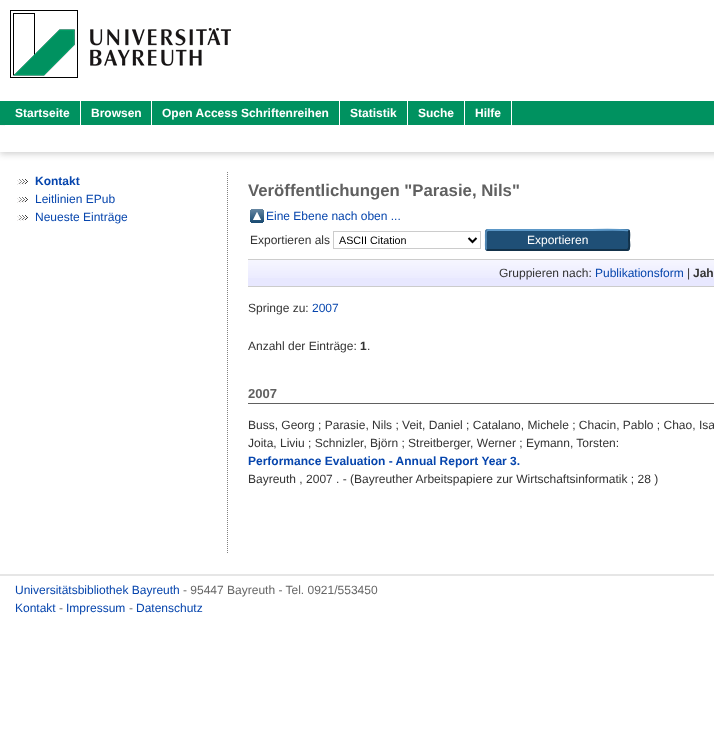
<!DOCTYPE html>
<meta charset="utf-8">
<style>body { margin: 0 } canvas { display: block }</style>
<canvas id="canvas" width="714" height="742"></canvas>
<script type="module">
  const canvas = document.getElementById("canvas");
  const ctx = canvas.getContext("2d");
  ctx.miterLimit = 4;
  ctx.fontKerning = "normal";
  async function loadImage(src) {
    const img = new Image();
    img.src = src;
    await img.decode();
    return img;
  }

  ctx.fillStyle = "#ffffff";
  ctx.fillRect(0, 0, 714, 742);
  ctx.drawImage(await loadImage("img1.png"), 10, 10, 221, 68);
  ctx.fillStyle = "#009260";
  ctx.fillRect(0, 101, 714, 24);
  ctx.save();
  ctx.beginPath();
  ctx.moveTo(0, 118);
  ctx.lineTo(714, 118);
  ctx.lineTo(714, 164);
  ctx.lineTo(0, 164);
  ctx.closePath();
  ctx.moveTo(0, 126);
  ctx.lineTo(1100, 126);
  ctx.lineTo(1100, 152);
  ctx.lineTo(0, 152);
  ctx.closePath();
  ctx.clip("evenodd");
  ctx.fillStyle = "rgba(100, 100, 100, 0.3)";
  ctx.filter = "blur(3px)";
  ctx.beginPath();
  ctx.rect(0, 128, 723, 26);
  ctx.fill();
  ctx.filter = "none";
  ctx.restore();
  ctx.fillRect(5, 124, 506, 1);
  ctx.fillStyle = "#ffffff";
  ctx.fillRect(5, 125, 507, 1);
  ctx.fillRect(80, 101, 1, 24);
  ctx.font = "bold 12px Liberation Sans";
  ctx.fillText("Startseite", 15, 117);
  ctx.fillRect(151, 101, 1, 24);
  ctx.fillText("Browsen", 91, 117);
  ctx.fillRect(339, 101, 1, 24);
  ctx.fillText("Open Access Schriftenreihen", 162, 117);
  ctx.fillRect(407, 101, 1, 24);
  ctx.fillText("Statistik", 350, 117);
  ctx.fillRect(464, 101, 1, 24);
  ctx.fillText("Suche", 418, 117);
  ctx.fillRect(511, 101, 1, 24);
  ctx.fillText("Hilfe", 475, 117);
  ctx.drawImage(await loadImage("img2.png"), 17, 179, 11, 6);
  ctx.fillStyle = "#0645ad";
  ctx.fillText("Kontakt", 35, 185);
  ctx.drawImage(await loadImage("img2.png"), 17, 197, 11, 6);
  ctx.font = "12px Liberation Sans";
  ctx.fillText("Leitlinien EPub", 35, 203);
  ctx.drawImage(await loadImage("img2.png"), 17, 215, 11, 6);
  ctx.fillText("Neueste Einträge", 35, 221);
  ctx.beginPath();
  ctx.moveTo(227.5, 172);
  ctx.lineTo(227.5, 554);
  ctx.strokeStyle = "#808080";
  ctx.setLineDash([1, 1]);
  ctx.stroke();
  ctx.font = "bold 16.75px Liberation Sans";
  ctx.fillStyle = "#606060";
  ctx.fillText("Veröffentlichungen \"Parasie, Nils\"", 248, 196);
  ctx.drawImage(await loadImage("img3.png"), 250, 209, 14, 14);
  ctx.font = "12px Liberation Sans";
  ctx.fillStyle = "#0645ad";
  ctx.fillText("Eine Ebene nach oben ...", 266, 220);
  ctx.fillStyle = "#333333";
  ctx.fillText("Exportieren als", 250, 244);
  ctx.strokeStyle = "#cccccc";
  ctx.setLineDash([]);
  ctx.strokeRect(333.5, 231.5, 147, 17);
  ctx.beginPath();
  ctx.moveTo(468.5, 238);
  ctx.lineTo(472.5, 242);
  ctx.lineTo(476.5, 238);
  ctx.strokeStyle = "#000000";
  ctx.lineWidth = 2;
  ctx.stroke();
  ctx.font = "10.75px Liberation Sans";
  ctx.fillStyle = "#000000";
  ctx.fillText("ASCII Citation", 339, 244);
  ctx.fillStyle = "#1f4f76";
  ctx.beginPath();
  ctx.roundRect(485, 229, 145, 22, 3);
  ctx.fill();
  ctx.beginPath();
  ctx.moveTo(486.5, 230.5);
  ctx.lineTo(488, 230);
  ctx.lineTo(580.5, 230);
  ctx.bezierCurveTo(583.5, 230, 627, 229, 628.5, 230.5);
  ctx.strokeStyle = "#5b97c7";
  ctx.stroke();
  ctx.beginPath();
  ctx.moveTo(628.5, 230.5);
  ctx.bezierCurveTo(630, 232, 629, 238, 629, 240);
  ctx.bezierCurveTo(629, 241.5, 630.5, 250, 627, 250);
  ctx.lineTo(488, 250);
  ctx.lineTo(486.5, 249.5);
  ctx.strokeStyle = "#13324a";
  ctx.stroke();
  ctx.beginPath();
  ctx.moveTo(486.5, 249.5);
  ctx.bezierCurveTo(485.5, 248, 486, 242, 486, 240);
  ctx.bezierCurveTo(486, 238, 485.5, 232, 486.5, 230.5);
  ctx.strokeStyle = "#5287b3";
  ctx.stroke();
  ctx.font = "12px Liberation Sans";
  ctx.fillStyle = "#ffffff";
  ctx.fillText("Exportieren", 527, 244);
  ctx.fillStyle = "#e8e8ff";
  ctx.fillRect(248, 260, 466, 26);
  ctx.drawImage(await loadImage("img4.png"), 248, 260, 466, 18);
  ctx.fillStyle = "#cccccc";
  ctx.fillRect(248, 259, 466, 1);
  ctx.fillRect(248, 286, 466, 1);
  ctx.fillStyle = "#333333";
  ctx.fillText("Gruppieren nach:", 499, 277);
  ctx.fillStyle = "#0645ad";
  ctx.fillText("Publikationsform", 595, 277);
  ctx.fillStyle = "#333333";
  ctx.fillText("|", 687, 277);
  ctx.font = "bold 12px Liberation Sans";
  ctx.fillText("Jah", 693, 277);
  ctx.font = "12px Liberation Sans";
  ctx.fillText("Springe zu:", 248, 312);
  ctx.fillStyle = "#0645ad";
  ctx.fillText("2007", 312, 312);
  ctx.fillStyle = "#333333";
  ctx.fillText("Anzahl der Einträge:", 248, 350);
  ctx.font = "bold 12px Liberation Sans";
  ctx.fillText("1", 360, 350);
  ctx.font = "12px Liberation Sans";
  ctx.fillText(".", 367, 350);
  ctx.fillStyle = "#606060";
  ctx.fillRect(248, 403, 466, 1);
  ctx.font = "bold 13px Liberation Sans";
  ctx.fillText("2007", 248, 398);
  ctx.font = "12px Liberation Sans";
  ctx.fillStyle = "#333333";
  ctx.fillText("Buss, Georg ; Parasie, Nils ; Veit, Daniel ; Catalano, Michele ; Chacin, Pablo ; Chao, Isa", 248, 429);
  ctx.fillText("Joita, Liviu ; Schnizler, Björn ; Streitberger, Werner ; Eymann, Torsten:", 248, 447);
  ctx.font = "bold 12px Liberation Sans";
  ctx.fillStyle = "#0645ad";
  ctx.fillText("Performance Evaluation - Annual Report Year 3.", 248, 465);
  ctx.font = "12px Liberation Sans";
  ctx.fillStyle = "#333333";
  ctx.fillText("Bayreuth , 2007 . - (Bayreuther Arbeitspapiere zur Wirtschaftsinformatik ; 28 )", 248, 483);
  ctx.fillStyle = "#e6e6e6";
  ctx.fillRect(0, 574, 714, 2);
  ctx.fillStyle = "#0645ad";
  ctx.fillText("Universitätsbibliothek Bayreuth", 15, 594);
  ctx.fillStyle = "#666666";
  ctx.fillText("- 95447 Bayreuth - Tel. 0921/553450", 183, 594);
  ctx.fillStyle = "#0645ad";
  ctx.fillText("Kontakt", 15, 612);
  ctx.fillStyle = "#666666";
  ctx.fillText("-", 59, 612);
  ctx.fillStyle = "#0645ad";
  ctx.fillText("Impressum", 66, 612);
  ctx.fillStyle = "#666666";
  ctx.fillText("-", 129, 612);
  ctx.fillStyle = "#0645ad";
  ctx.fillText("Datenschutz", 136, 612);
</script>
